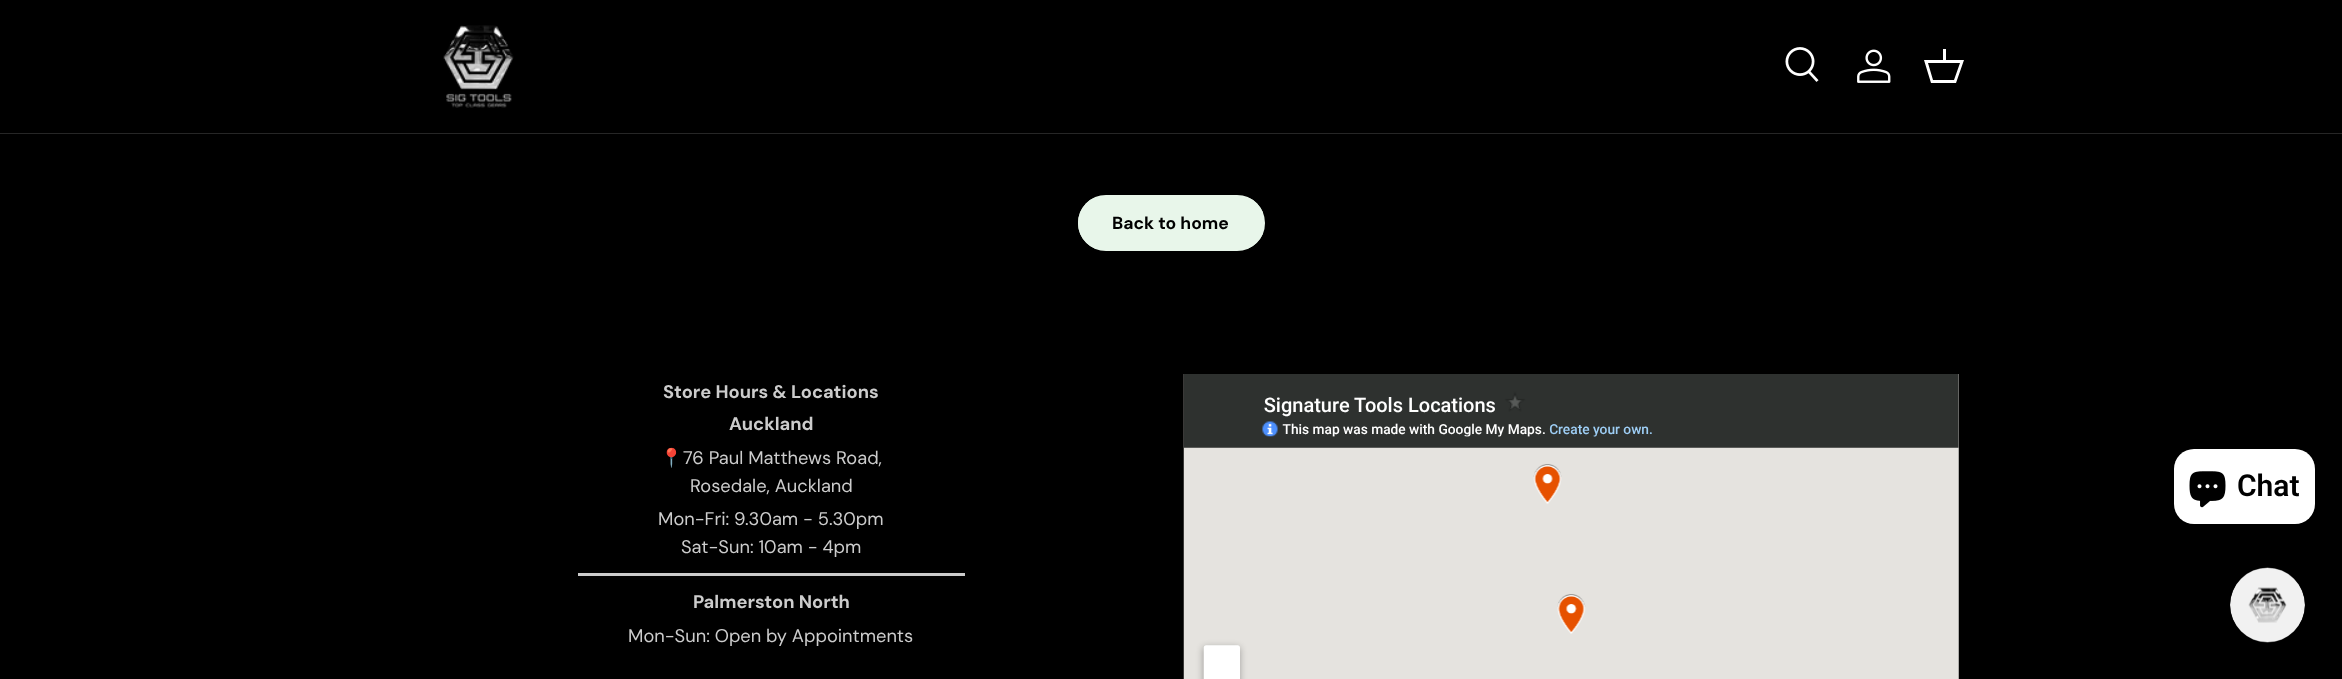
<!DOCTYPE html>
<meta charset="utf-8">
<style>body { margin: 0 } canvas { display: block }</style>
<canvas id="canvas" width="2342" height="679"></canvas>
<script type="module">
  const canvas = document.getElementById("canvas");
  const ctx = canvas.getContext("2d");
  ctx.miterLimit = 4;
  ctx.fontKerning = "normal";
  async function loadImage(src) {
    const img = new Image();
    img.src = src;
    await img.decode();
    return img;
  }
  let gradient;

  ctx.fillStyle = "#000000";
  ctx.fillRect(0, 0, 2342, 679);
  ctx.fillStyle = "#262626";
  ctx.fillRect(0, 133, 2342, 1);
  ctx.drawImage(await loadImage("img1.png"), 443, 25, 71, 83);
  ctx.drawImage(await loadImage("img2.png"), 1785, 47, 34, 35);
  ctx.drawImage(await loadImage("img3.png"), 1857, 49, 34, 34);
  ctx.fillStyle = "#ffffff";
  ctx.beginPath();
  ctx.moveTo(1943, 60);
  ctx.lineTo(1943, 49);
  ctx.lineTo(1946, 49);
  ctx.lineTo(1946, 60);
  ctx.lineTo(1964, 60);
  ctx.lineTo(1956, 83);
  ctx.lineTo(1931, 83);
  ctx.lineTo(1924, 60);
  ctx.closePath();
  ctx.moveTo(1928, 63);
  ctx.lineTo(1933, 80);
  ctx.lineTo(1954, 80);
  ctx.lineTo(1960, 63);
  ctx.closePath();
  ctx.fill();
  ctx.save();
  ctx.beginPath();
  ctx.roundRect(1078, 195, 187, 56, 28);
  ctx.clip();
  gradient = ctx.createLinearGradient(725, 157, 1252, 289);
  gradient.addColorStop(0.6, "#ced8cf");
  gradient.addColorStop(0.6, "#e8f6ea");
  gradient.addColorStop(1, "#e8f6ea");
  ctx.fillStyle = gradient;
  ctx.fillRect(1078, 198, 185, 51);
  ctx.restore();
  ctx.beginPath();
  ctx.roundRect(1079.5, 196.5, 184, 53, 26.5);
  ctx.strokeStyle = "#e8f6ea";
  ctx.lineWidth = 3;
  ctx.stroke();
  ctx.font = "bold 17.5px DM Sans";
  ctx.fillStyle = "#000000";
  ctx.fillText("Back to home", 1112, 229);
  ctx.font = "bold 18.3px 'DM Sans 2'";
  ctx.fillStyle = "#cccccc";
  ctx.fillText("Store Hours & Locations", 663, 398);
  ctx.fillText("Auckland", 729, 430);
  ctx.font = "18.3px Noto Color Emoji";
  ctx.fillText("📍", 660, 464);
  ctx.font = "18.3px DM Sans";
  ctx.fillText("76 Paul Matthews Road,", 683, 464);
  ctx.fillText("Rosedale, Auckland", 690, 492);
  ctx.fillText("Mon-Fri: 9.30am - 5.30pm", 658, 525);
  ctx.fillText("Sat-Sun: 10am - 4pm", 681, 553);
  ctx.fillRect(578, 573, 387, 3);
  ctx.font = "bold 18.3px 'DM Sans 2'";
  ctx.fillText("Palmerston North", 693, 608);
  ctx.font = "18.3px DM Sans";
  ctx.fillText("Mon-Sun: Open by Appointments", 628, 642);
  ctx.drawImage(await loadImage("img4.png"), 1183, 374, 776, 305);
  ctx.fillStyle = "#ffffff";
  ctx.beginPath();
  ctx.roundRect(2174, 449, 141, 75, 20);
  ctx.fill();
  ctx.drawImage(await loadImage("img5.png"), 2189, 471, 37, 37);
  ctx.font = "600 30px Roboto";
  ctx.fillStyle = "#000000";
  ctx.fillText("Chat", 2237, 496);
  ctx.drawImage(await loadImage("img6.png"), 2230, 567, 75, 76);
</script>
